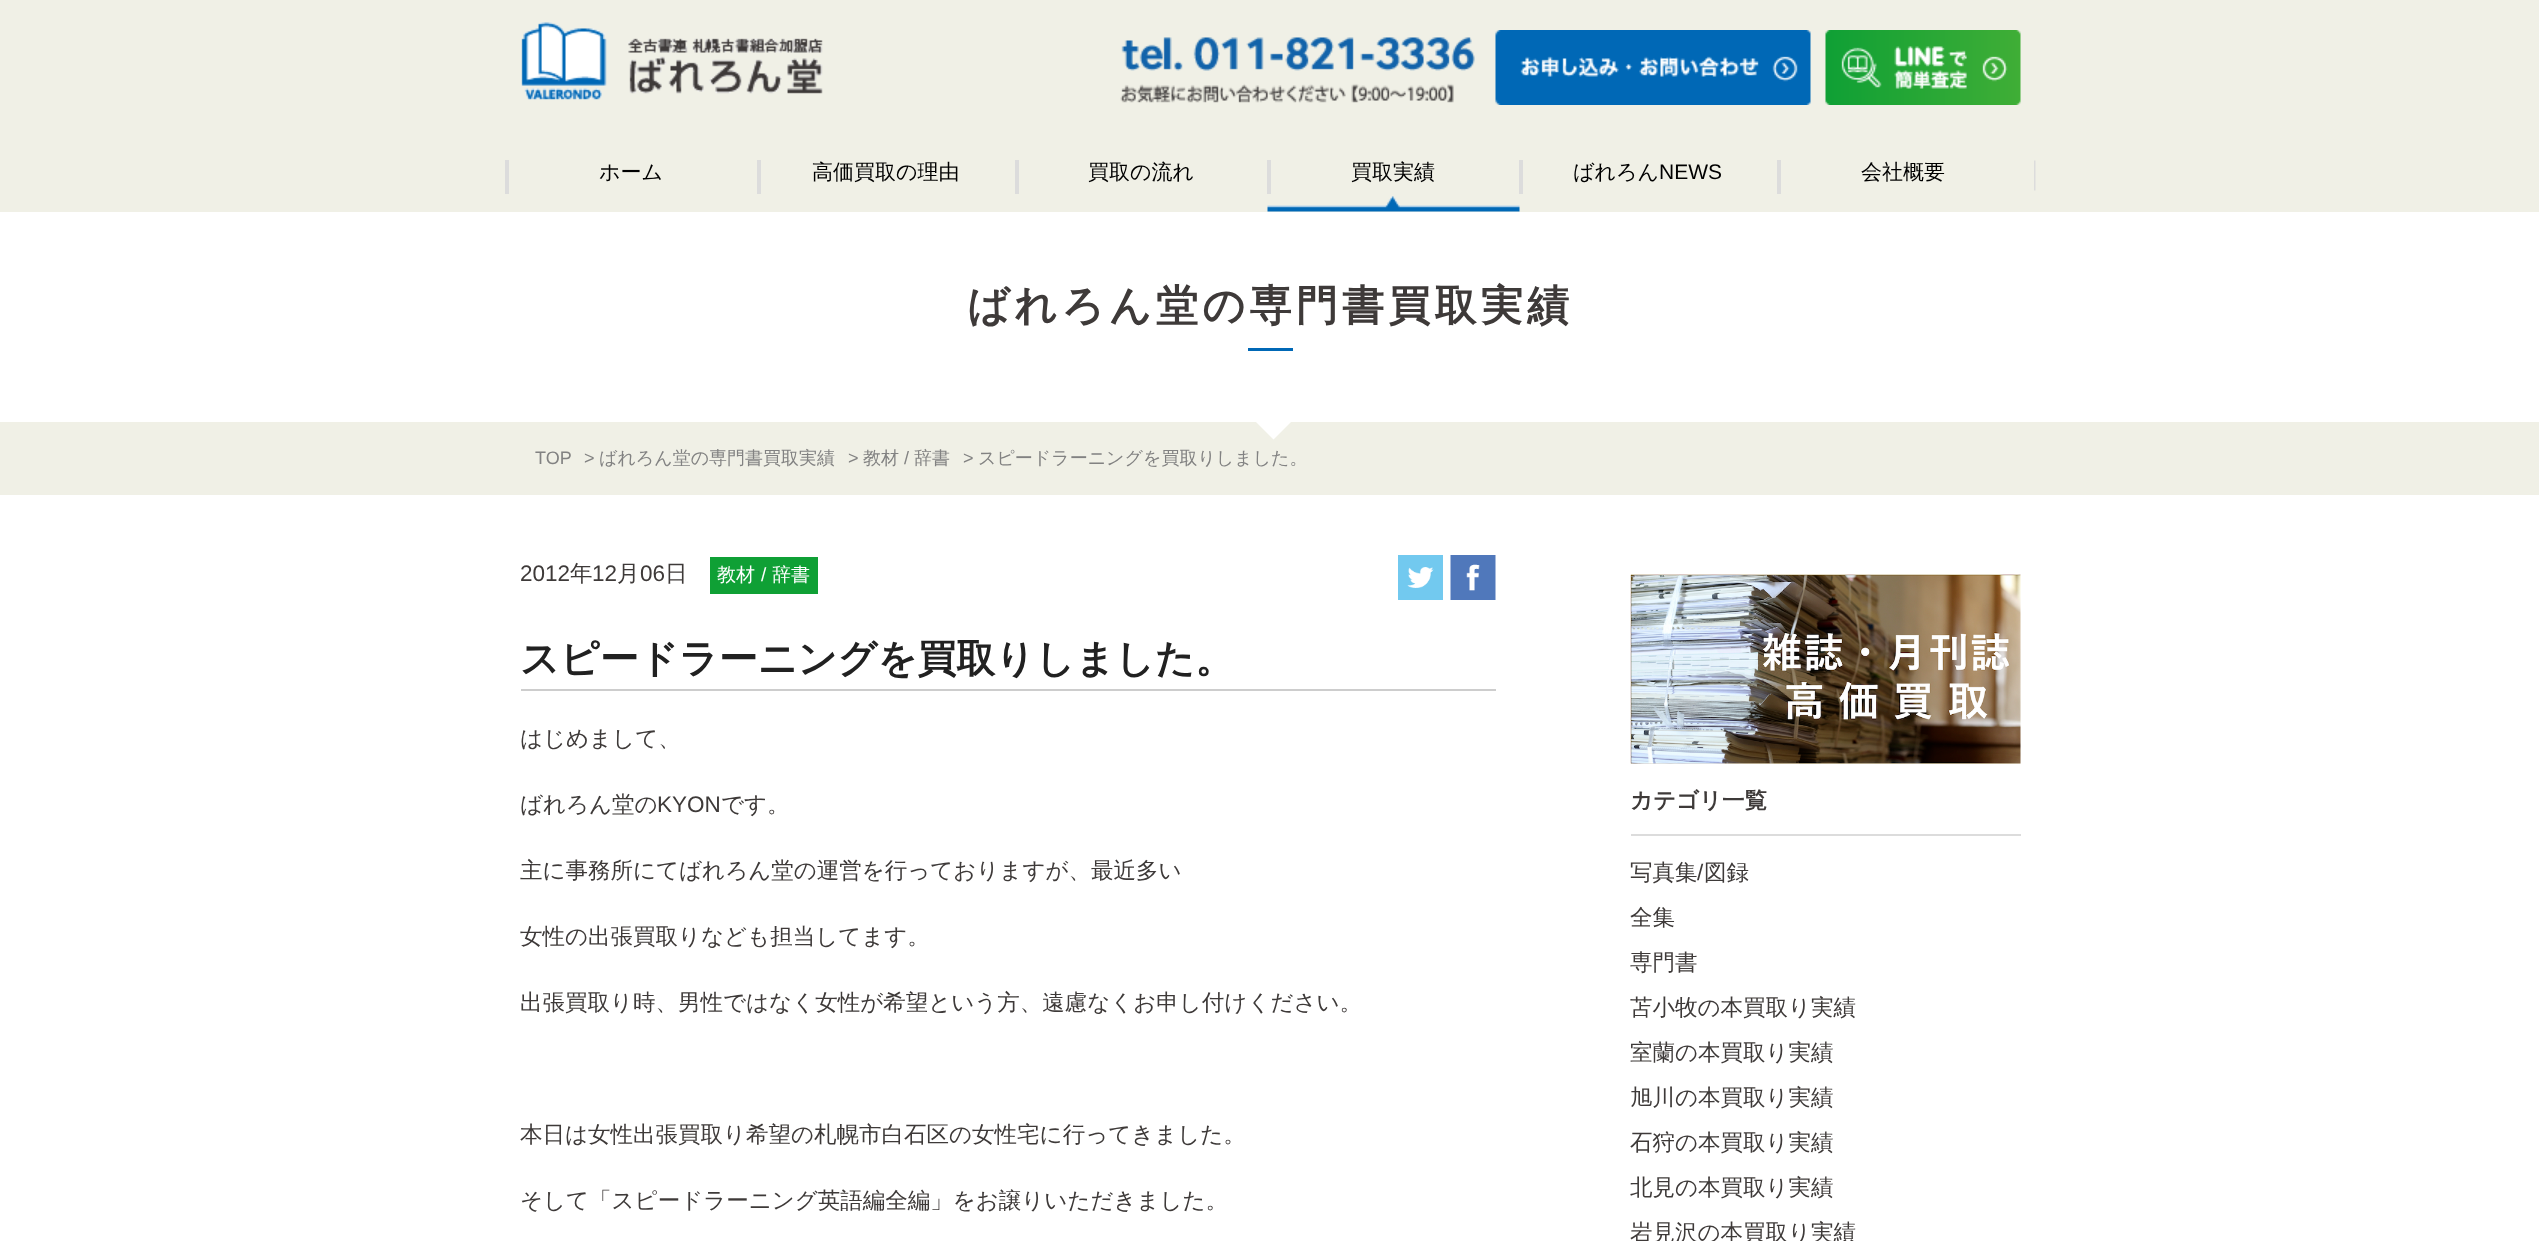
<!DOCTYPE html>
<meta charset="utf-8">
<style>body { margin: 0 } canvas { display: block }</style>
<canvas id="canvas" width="2539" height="1241"></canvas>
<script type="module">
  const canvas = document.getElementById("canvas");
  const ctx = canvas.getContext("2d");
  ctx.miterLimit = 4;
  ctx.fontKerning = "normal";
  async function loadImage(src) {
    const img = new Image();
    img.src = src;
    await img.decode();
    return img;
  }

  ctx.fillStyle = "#f0f0e6";
  ctx.fillRect(0, 0, 2539, 1241);
  ctx.drawImage(await loadImage("img1.png"), 521, 22, 302, 78);
  ctx.drawImage(await loadImage("img2.png"), 1120, 37, 355, 66);
  ctx.drawImage(await loadImage("img3.png"), 1495, 30, 316, 75);
  ctx.drawImage(await loadImage("img4.png"), 1825, 30, 196, 75);
  ctx.drawImage(await loadImage("img5.png"), 2034, 160, 2, 31);
  ctx.fillStyle = "#dcdcdc";
  ctx.fillRect(505, 160, 4, 34);
  ctx.font = "500 21px WenQuanYi Zen Hei";
  ctx.fillStyle = "#000000";
  ctx.fillText("ホーム", 599, 179);
  ctx.fillStyle = "#dcdcdc";
  ctx.fillRect(757, 160, 4, 34);
  ctx.fillStyle = "#000000";
  ctx.fillText("高価買取の理由", 812, 179);
  ctx.fillStyle = "#dcdcdc";
  ctx.fillRect(1015, 160, 4, 34);
  ctx.fillStyle = "#000000";
  ctx.fillText("買取の流れ", 1088, 179);
  ctx.fillStyle = "#dcdcdc";
  ctx.fillRect(1267, 160, 4, 34);
  ctx.drawImage(await loadImage("img6.png"), 1267, 196, 253, 16);
  ctx.fillStyle = "#000000";
  ctx.fillText("買取実績", 1351, 179);
  ctx.fillStyle = "#dcdcdc";
  ctx.fillRect(1519, 160, 4, 34);
  ctx.fillStyle = "#000000";
  ctx.fillText("ばれろん", 1573, 179);
  ctx.font = "21px Liberation Sans";
  ctx.fillText("NEWS", 1659, 179);
  ctx.fillStyle = "#dcdcdc";
  ctx.fillRect(1777, 160, 4, 34);
  ctx.font = "500 21px WenQuanYi Zen Hei";
  ctx.fillStyle = "#000000";
  ctx.fillText("会社概要", 1861, 179);
  ctx.fillStyle = "#ffffff";
  ctx.fillRect(0, 212, 2539, 210);
  ctx.letterSpacing = "4.25px";
  ctx.font = "bold 42px WenQuanYi Zen Hei";
  ctx.fillStyle = "#3e3a39";
  ctx.fillText("ばれろん堂の専門書買取実績", 967, 320);
  ctx.fillStyle = "#0068b6";
  ctx.fillRect(1248, 348, 45, 3);
  ctx.fillStyle = "#ffffff";
  ctx.beginPath();
  ctx.moveTo(1255.5, 421.5);
  ctx.lineTo(1291.5, 421.5);
  ctx.lineTo(1273.5, 439.5);
  ctx.closePath();
  ctx.fill();
  ctx.letterSpacing = "0px";
  ctx.font = "18px Liberation Sans";
  ctx.fillStyle = "#828282";
  ctx.fillText("TOP", 535, 464);
  ctx.fillText(">", 584, 464);
  ctx.font = "500 18px WenQuanYi Zen Hei";
  ctx.fillText("ばれろん堂の専門書買取実績", 599, 464);
  ctx.font = "18px Liberation Sans";
  ctx.fillText(">", 848, 464);
  ctx.font = "500 18px WenQuanYi Zen Hei";
  ctx.fillText("教材", 863, 464);
  ctx.font = "18px Liberation Sans";
  ctx.fillText("/", 904, 464);
  ctx.font = "500 18px WenQuanYi Zen Hei";
  ctx.fillText("辞書", 914, 464);
  ctx.font = "18px Liberation Sans";
  ctx.fillText(">", 963, 464);
  ctx.font = "500 18px WenQuanYi Zen Hei";
  ctx.fillText("スピードラーニングを買取りしました。", 978, 464);
  ctx.fillStyle = "#ffffff";
  ctx.fillRect(0, 495, 2539, 746);
  ctx.font = "22.5px Liberation Sans";
  ctx.fillStyle = "#3e3a39";
  ctx.fillText("2012", 520, 581);
  ctx.font = "500 22.5px WenQuanYi Zen Hei";
  ctx.fillText("年", 570, 581);
  ctx.font = "22.5px Liberation Sans";
  ctx.fillText("12", 592, 581);
  ctx.font = "500 22.5px WenQuanYi Zen Hei";
  ctx.fillText("月", 617, 581);
  ctx.font = "22.5px Liberation Sans";
  ctx.fillText("06", 640, 581);
  ctx.font = "500 22.5px WenQuanYi Zen Hei";
  ctx.fillText("日", 665, 581);
  ctx.fillStyle = "#0fa035";
  ctx.fillRect(710, 557, 108, 37);
  ctx.font = "500 19px WenQuanYi Zen Hei";
  ctx.fillStyle = "#ffffff";
  ctx.fillText("教材", 717, 581);
  ctx.font = "19px Liberation Sans";
  ctx.fillText("/", 761, 581);
  ctx.font = "500 19px WenQuanYi Zen Hei";
  ctx.fillText("辞書", 772, 581);
  ctx.drawImage(await loadImage("img7.png"), 1398, 555, 45, 45);
  ctx.drawImage(await loadImage("img8.png"), 1450, 555, 46, 45);
  ctx.fillStyle = "#cdcdcd";
  ctx.fillRect(521, 689, 975, 2);
  ctx.font = "bold 39px WenQuanYi Zen Hei";
  ctx.fillStyle = "#212121";
  ctx.fillText("スピードラーニングを買取りしました。", 520, 672);
  ctx.font = "500 22.5px WenQuanYi Zen Hei";
  ctx.fillStyle = "#3e3a39";
  ctx.fillText("はじめまして、", 520, 746);
  ctx.fillText("ばれろん堂の", 520, 812);
  ctx.font = "22.5px Liberation Sans";
  ctx.fillText("KYON", 657, 812);
  ctx.font = "500 22.5px WenQuanYi Zen Hei";
  ctx.fillText("です。", 721, 812);
  ctx.fillText("主に事務所にてばれろん堂の運営を行っておりますが、最近多い", 520, 878);
  ctx.fillText("女性の出張買取りなども担当してます。", 520, 944);
  ctx.fillText("出張買取り時、男性ではなく女性が希望という方、遠慮なくお申し付けください。", 520, 1010);
  ctx.fillText("本日は女性出張買取り希望の札幌市白石区の女性宅に行ってきました。", 520, 1142);
  ctx.fillText("そして「スピードラーニング英語編全編」をお譲りいただきました。", 520, 1208);
  ctx.drawImage(await loadImage("img9.png"), 1630, 574, 391, 190);
  ctx.fillStyle = "#dcdcdc";
  ctx.fillRect(1631, 834, 390, 2);
  ctx.font = "bold 22.5px WenQuanYi Zen Hei";
  ctx.fillStyle = "#3e3a39";
  ctx.fillText("カテゴリ一覧", 1630, 808);
  ctx.font = "500 22.5px WenQuanYi Zen Hei";
  ctx.fillText("写真集", 1630, 880);
  ctx.font = "22.5px Liberation Sans";
  ctx.fillText("/", 1697, 880);
  ctx.font = "500 22.5px WenQuanYi Zen Hei";
  ctx.fillText("図録", 1704, 880);
  ctx.fillText("全集", 1630, 925);
  ctx.fillText("専門書", 1630, 970);
  ctx.fillText("苫小牧の本買取り実績", 1630, 1015);
  ctx.fillText("室蘭の本買取り実績", 1630, 1060);
  ctx.fillText("旭川の本買取り実績", 1630, 1105);
  ctx.fillText("石狩の本買取り実績", 1630, 1150);
  ctx.fillText("北見の本買取り実績", 1630, 1195);
  ctx.fillText("岩見沢の本買取り実績", 1630, 1240);
</script>
